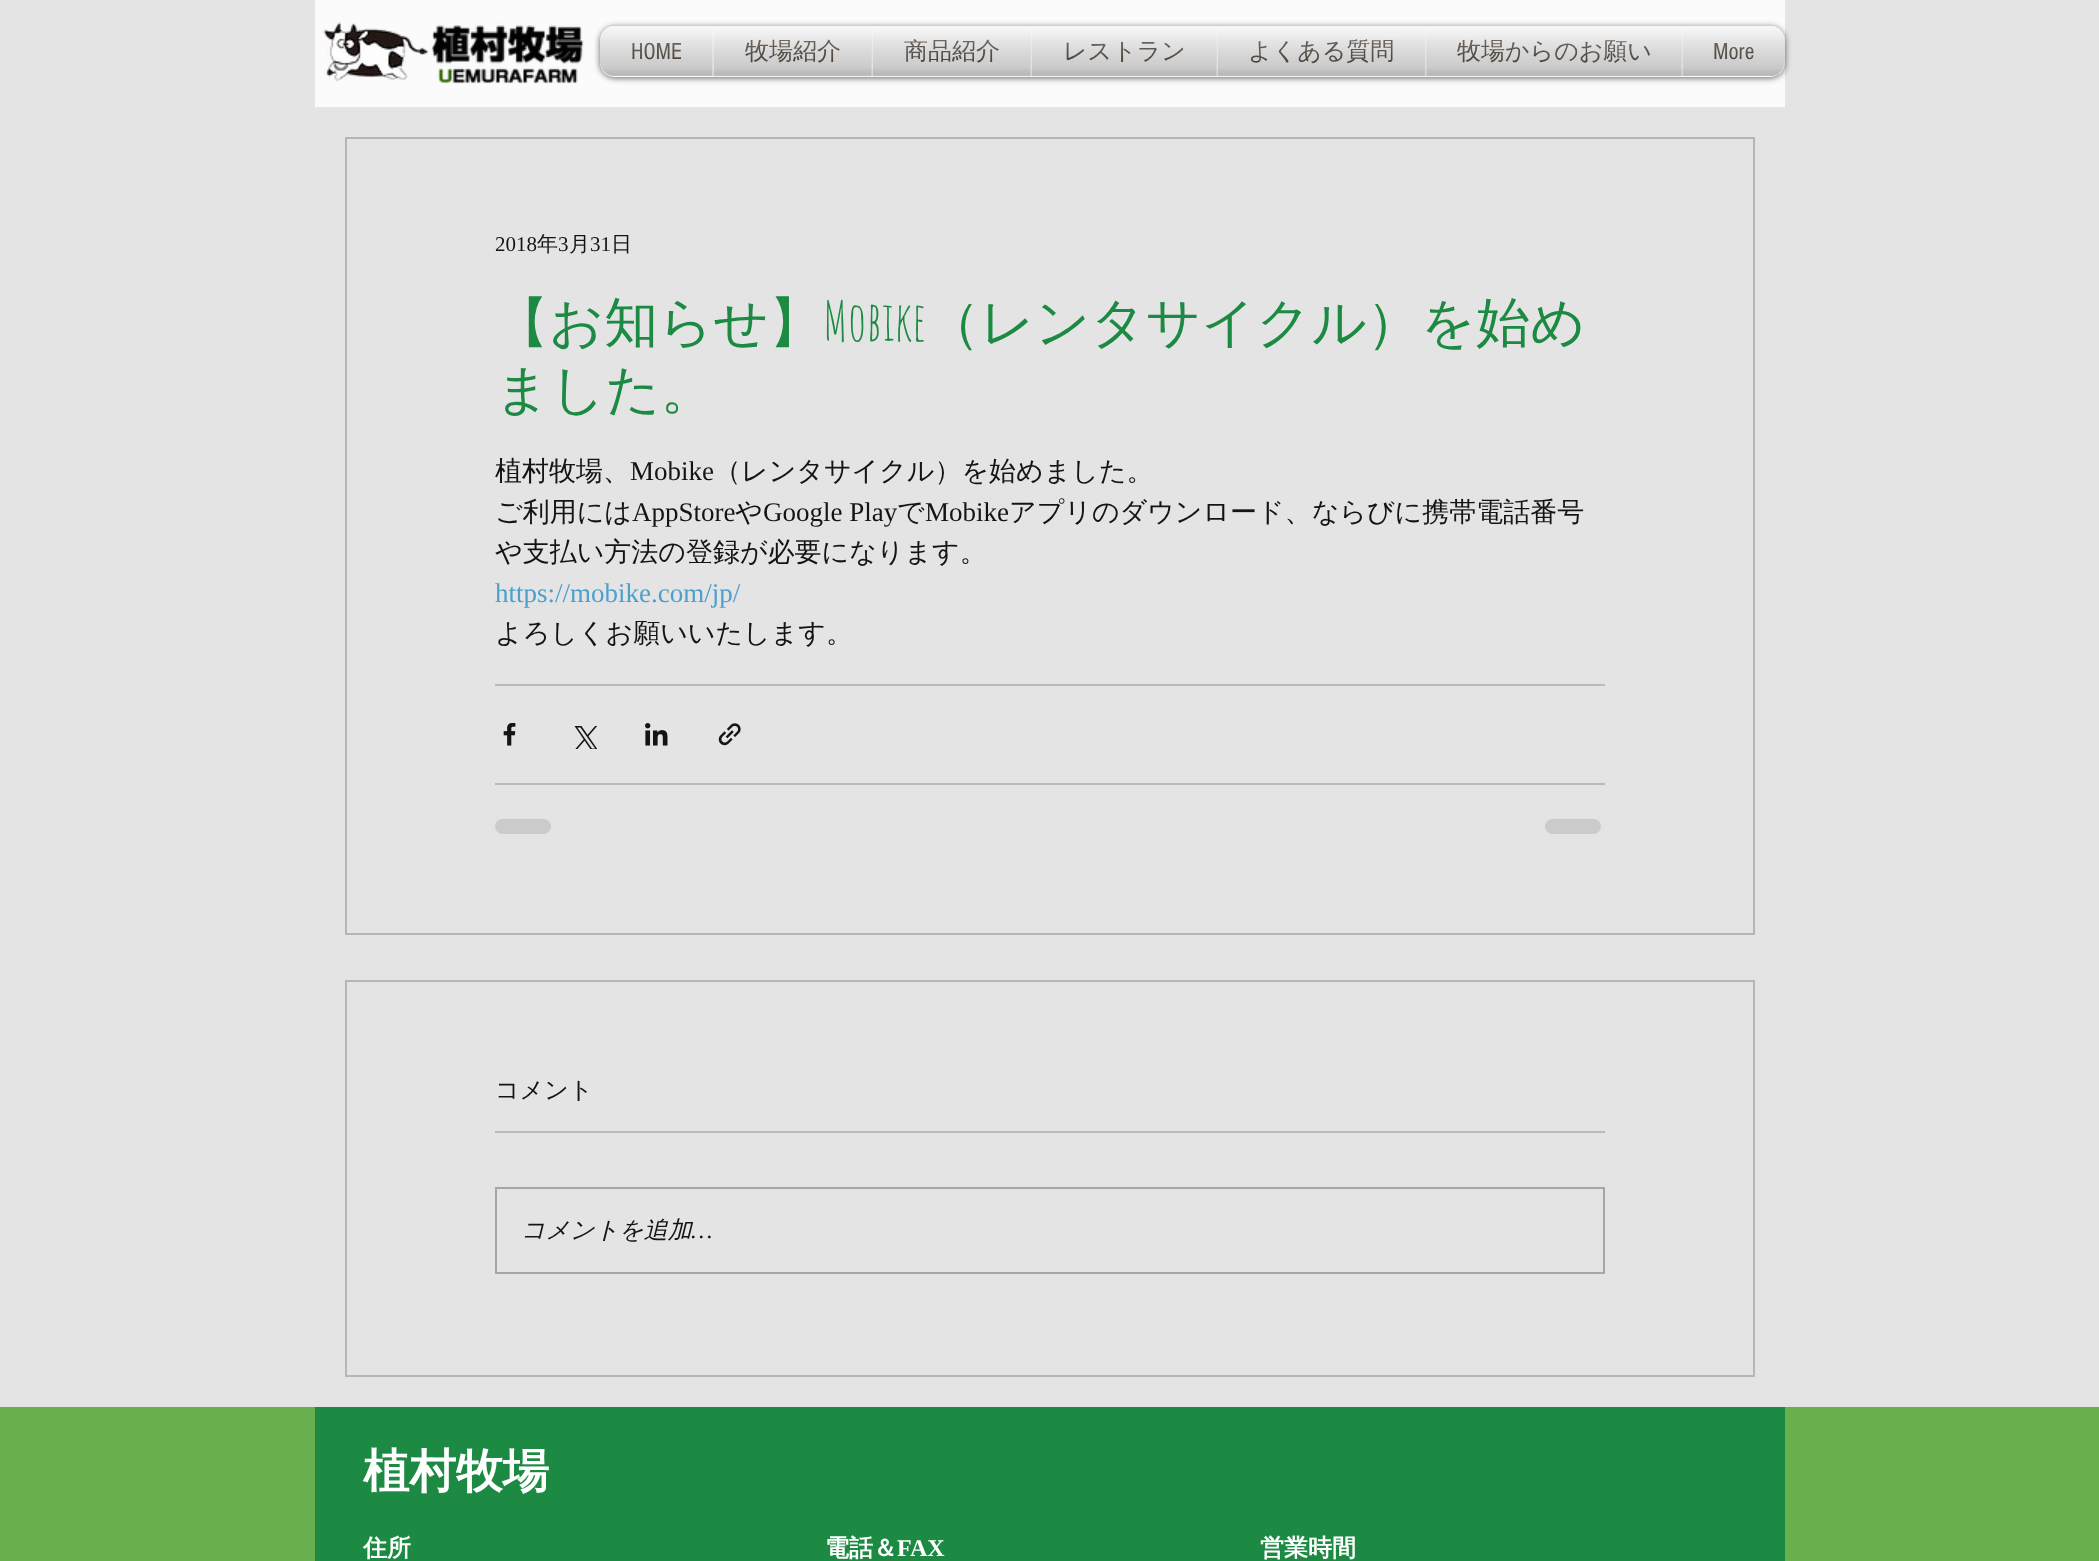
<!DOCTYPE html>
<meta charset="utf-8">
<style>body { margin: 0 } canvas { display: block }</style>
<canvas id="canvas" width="2099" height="1561"></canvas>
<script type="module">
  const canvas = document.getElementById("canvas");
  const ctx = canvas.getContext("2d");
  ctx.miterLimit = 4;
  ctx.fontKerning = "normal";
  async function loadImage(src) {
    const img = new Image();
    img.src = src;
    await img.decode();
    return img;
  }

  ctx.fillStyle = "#e4e4e4";
  ctx.fillRect(0, 0, 2099, 1561);
  ctx.fillStyle = "#fbfbfb";
  ctx.fillRect(315, 0, 1470, 107);
  ctx.drawImage(await loadImage("img1.png"), 323, 22, 261, 62);
  ctx.save();
  ctx.beginPath();
  ctx.moveTo(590, 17);
  ctx.lineTo(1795, 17);
  ctx.lineTo(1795, 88);
  ctx.lineTo(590, 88);
  ctx.closePath();
  ctx.moveTo(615, 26);
  ctx.lineTo(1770, 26);
  ctx.bezierCurveTo(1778.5, 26, 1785, 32.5, 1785, 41);
  ctx.lineTo(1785, 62);
  ctx.bezierCurveTo(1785, 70.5, 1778.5, 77, 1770, 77);
  ctx.lineTo(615, 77);
  ctx.bezierCurveTo(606.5, 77, 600, 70.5, 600, 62);
  ctx.lineTo(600, 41);
  ctx.bezierCurveTo(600, 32.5, 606.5, 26, 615, 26);
  ctx.closePath();
  ctx.clip("evenodd");
  ctx.fillStyle = "rgba(0, 0, 0, 0.6)";
  ctx.filter = "blur(3px)";
  ctx.beginPath();
  ctx.roundRect(600, 27, 1185, 51, 15);
  ctx.fill();
  ctx.filter = "none";
  ctx.restore();
  ctx.drawImage(await loadImage("img2.png"), 600, 25, 1185, 14);
  ctx.drawImage(await loadImage("img3.png"), 600, 26, 1185, 50);
  ctx.font = "24px 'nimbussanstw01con'";
  ctx.fillStyle = "#36291e";
  ctx.fillText("HOME", 631, 59);
  ctx.drawImage(await loadImage("img4.png"), 600, 26, 112, 39);
  ctx.drawImage(await loadImage("img5.png"), 600, 26, 113, 50);
  ctx.font = "500 24px WenQuanYi Zen Hei";
  ctx.fillText("牧場紹介", 745, 59);
  ctx.drawImage(await loadImage("img6.png"), 714, 26, 157, 39);
  ctx.drawImage(await loadImage("img7.png"), 714, 26, 158, 51);
  ctx.fillText("商品紹介", 904, 59);
  ctx.drawImage(await loadImage("img8.png"), 873, 26, 157, 39);
  ctx.drawImage(await loadImage("img9.png"), 873, 26, 158, 51);
  ctx.fillText("レストラン", 1063, 59);
  ctx.drawImage(await loadImage("img10.png"), 1032, 26, 184, 39);
  ctx.drawImage(await loadImage("img11.png"), 1032, 26, 185, 51);
  ctx.fillText("よくある質問", 1248, 59);
  ctx.drawImage(await loadImage("img12.png"), 1218, 26, 207, 39);
  ctx.drawImage(await loadImage("img13.png"), 1218, 26, 207, 51);
  ctx.fillText("牧場からのお願い", 1457, 59);
  ctx.drawImage(await loadImage("img14.png"), 1427, 26, 254, 39);
  ctx.drawImage(await loadImage("img15.png"), 1426, 26, 256, 51);
  ctx.font = "24px 'nimbussanstw01con'";
  ctx.fillText("More", 1713, 59);
  ctx.drawImage(await loadImage("img16.png"), 1683, 26, 102, 39);
  ctx.drawImage(await loadImage("img17.png"), 1683, 26, 102, 50);
  ctx.strokeStyle = "#b7b6b6";
  ctx.lineWidth = 2;
  ctx.strokeRect(346, 138, 1408, 796);
  ctx.font = "21px Liberation Serif";
  ctx.fillStyle = "#141414";
  ctx.fillText("2018", 495, 251);
  ctx.font = "500 21px WenQuanYi Zen Hei";
  ctx.fillText("年", 537, 251);
  ctx.font = "21px Liberation Serif";
  ctx.fillText("3", 558, 251);
  ctx.font = "500 21px WenQuanYi Zen Hei";
  ctx.fillText("月", 569, 251);
  ctx.font = "21px Liberation Serif";
  ctx.fillText("31", 590, 251);
  ctx.font = "500 21px WenQuanYi Zen Hei";
  ctx.fillText("日", 611, 251);
  ctx.font = "500 54px WenQuanYi Zen Hei";
  ctx.fillStyle = "#1c8a43";
  ctx.fillText("【お知らせ】", 495, 341);
  ctx.font = "54px Amatic SC";
  ctx.fillText("Mobike", 823, 341);
  ctx.font = "500 54px WenQuanYi Zen Hei";
  ctx.fillText("（レンタサイクル）を始め", 926, 341);
  ctx.fillText("ました。", 495, 408);
  ctx.font = "500 27px WenQuanYi Zen Hei";
  ctx.fillStyle = "#141414";
  ctx.fillText("植村牧場、", 495, 480);
  ctx.font = "27px Liberation Serif";
  ctx.fillText("Mobike", 630, 480);
  ctx.font = "500 27px WenQuanYi Zen Hei";
  ctx.fillText("（レンタサイクル）を始めました。", 714, 480);
  ctx.fillText("ご利用には", 495, 521);
  ctx.font = "27px Liberation Serif";
  ctx.fillText("AppStore", 632, 521);
  ctx.font = "500 27px WenQuanYi Zen Hei";
  ctx.fillText("や", 735, 521);
  ctx.font = "27px Liberation Serif";
  ctx.fillText("Google Play", 763, 521);
  ctx.font = "500 27px WenQuanYi Zen Hei";
  ctx.fillText("で", 897, 521);
  ctx.font = "27px Liberation Serif";
  ctx.fillText("Mobike", 925, 521);
  ctx.font = "500 27px WenQuanYi Zen Hei";
  ctx.fillText("アプリのダウンロード、ならびに携帯電話番号", 1009, 521);
  ctx.fillText("や支払い方法の登録が必要になります。", 495, 561);
  ctx.font = "27px Liberation Serif";
  ctx.fillStyle = "#4ba0cc";
  ctx.fillText("https://mobike.com/jp/", 495, 602);
  ctx.font = "500 27px WenQuanYi Zen Hei";
  ctx.fillStyle = "#141414";
  ctx.fillText("よろしくお願いいたします。", 495, 642);
  ctx.fillStyle = "#bababa";
  ctx.fillRect(495, 684, 1110, 2);
  ctx.drawImage(await loadImage("img18.png"), 503, 723, 13, 23);
  ctx.drawImage(await loadImage("img19.png"), 574, 726, 23, 23);
  ctx.drawImage(await loadImage("img20.png"), 645, 723, 23, 23);
  ctx.drawImage(await loadImage("img21.png"), 718, 723, 23, 23);
  ctx.fillRect(495, 783, 1110, 2);
  ctx.fillStyle = "#cbcbcb";
  ctx.beginPath();
  ctx.roundRect(495, 819, 56, 15, 7.5);
  ctx.fill();
  ctx.beginPath();
  ctx.roundRect(1545, 819, 56, 15, 7.5);
  ctx.fill();
  ctx.strokeRect(346, 981, 1408, 395);
  ctx.font = "500 24px WenQuanYi Zen Hei";
  ctx.fillStyle = "#141414";
  ctx.fillText("コメント", 495, 1098);
  ctx.fillStyle = "#bababa";
  ctx.fillRect(495, 1131, 1110, 2);
  ctx.strokeStyle = "#a6a6a6";
  ctx.strokeRect(496, 1188, 1108, 85);
  ctx.font = "italic 500 24px WenQuanYi Zen Hei";
  ctx.fillStyle = "#141414";
  ctx.fillText("コメントを追加", 521, 1238);
  ctx.font = "italic 24px Liberation Serif";
  ctx.fillText("…", 691, 1238);
  ctx.fillStyle = "#68b04d";
  ctx.fillRect(0, 1407, 2099, 154);
  ctx.fillStyle = "#1c8a43";
  ctx.fillRect(315, 1407, 1470, 154);
  ctx.font = "bold 46.5px WenQuanYi Zen Hei";
  ctx.fillStyle = "#ffffff";
  ctx.fillText("植村牧場", 363, 1487);
  ctx.font = "bold 24px WenQuanYi Zen Hei";
  ctx.fillText("住所", 363, 1556);
  ctx.fillText("電話＆", 825, 1556);
  ctx.font = "bold 24px Liberation Serif";
  ctx.fillText("FAX", 897, 1556);
  ctx.font = "bold 24px WenQuanYi Zen Hei";
  ctx.fillText("営業時間", 1260, 1556);
</script>
